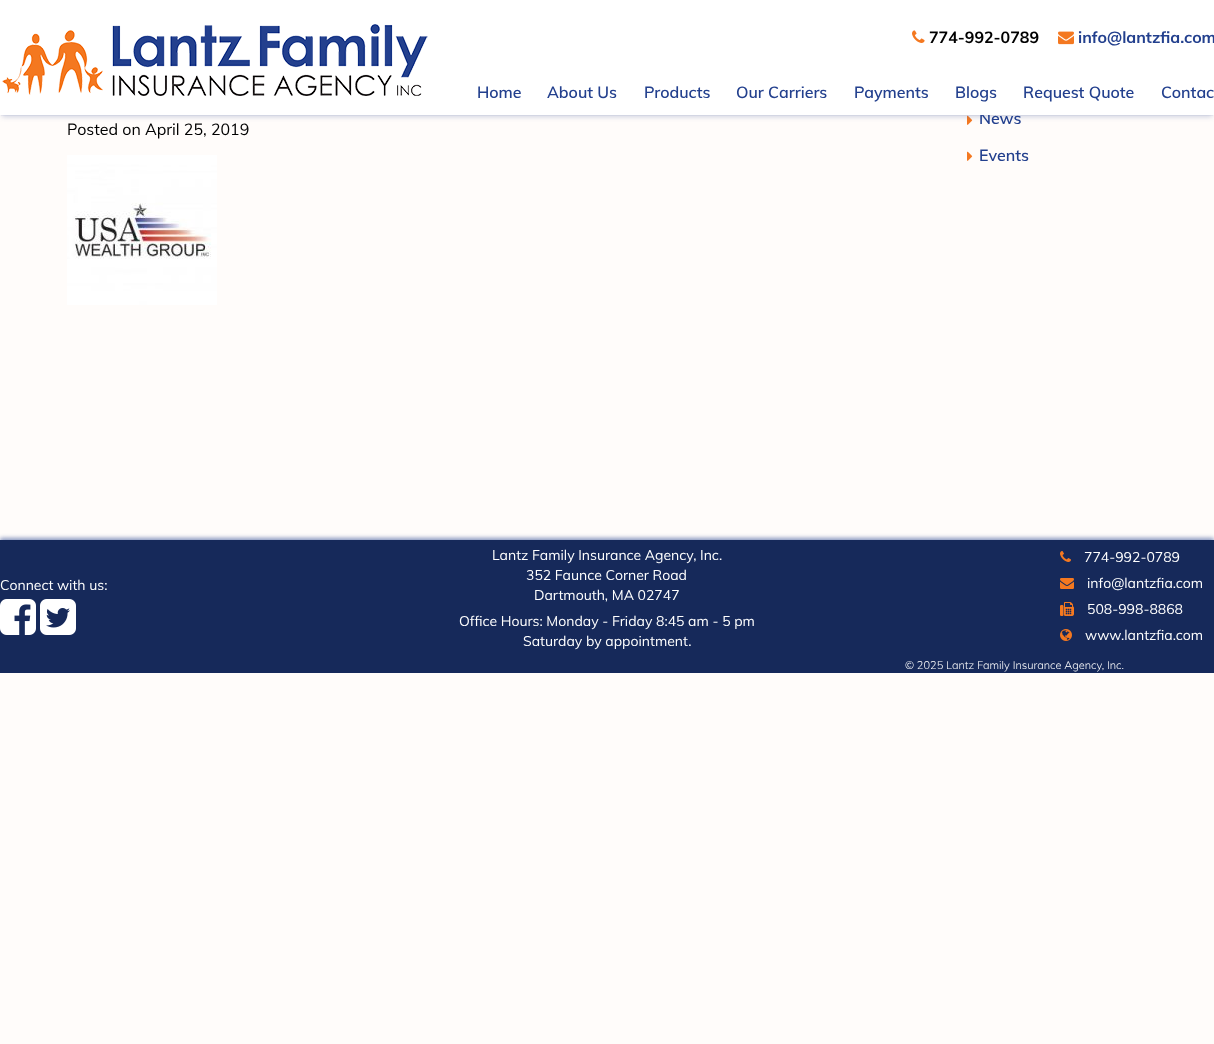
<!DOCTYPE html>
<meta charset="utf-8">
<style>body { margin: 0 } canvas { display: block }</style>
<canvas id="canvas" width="1214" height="1044"></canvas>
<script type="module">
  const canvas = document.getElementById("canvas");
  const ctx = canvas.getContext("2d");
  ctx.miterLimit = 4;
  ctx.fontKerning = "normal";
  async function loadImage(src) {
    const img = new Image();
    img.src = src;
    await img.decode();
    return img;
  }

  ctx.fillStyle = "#fffcfa";
  ctx.fillRect(0, 0, 1214, 1044);
  ctx.drawImage(await loadImage("img5.png"), 967, 115, 6, 10);
  ctx.fillStyle = "rgba(35, 64, 142, 0.05)";
  ctx.filter = "blur(0.5px)";
  ctx.beginPath();
  ctx.rect(1, 3, 1212, 113);
  ctx.fill();
  ctx.filter = "none";
  ctx.fillStyle = "rgba(35, 64, 142, 0.22)";
  ctx.filter = "blur(2.5px)";
  ctx.beginPath();
  ctx.rect(2, 6, 1210, 111);
  ctx.fill();
  ctx.filter = "none";
  ctx.font = "600 16px Muli";
  ctx.fillStyle = "#23408e";
  ctx.fillText("News", 979, 124);
  ctx.fillStyle = "#ffffff";
  ctx.fillRect(0, 0, 1214, 115);
  ctx.drawImage(await loadImage("img1.png"), 2, 24, 426, 72);
  ctx.drawImage(await loadImage("img2.png"), 912, 30, 13, 13);
  ctx.font = "bold 16px Muli";
  ctx.fillStyle = "#000000";
  ctx.fillText("774-992-0789", 929, 43);
  ctx.drawImage(await loadImage("img3.png"), 1058, 31, 16, 14);
  ctx.fillStyle = "#23408e";
  ctx.fillText("info@lantzfia.com", 1078, 43);
  ctx.font = "600 16px Muli";
  ctx.fillText("Home", 477, 98);
  ctx.fillText("About Us", 547, 98);
  ctx.fillText("Products", 644, 98);
  ctx.fillText("Our Carriers", 736, 98);
  ctx.fillText("Payments", 854, 98);
  ctx.fillText("Blogs", 955, 98);
  ctx.fillText("Request Quote", 1023, 98);
  ctx.fillText("Contac", 1161, 98);
  ctx.font = "16px Muli";
  ctx.fillStyle = "#000000";
  ctx.fillText("Posted on April 25, 2019", 67, 135);
  ctx.drawImage(await loadImage("img4.png"), 67, 155, 150, 150);
  ctx.drawImage(await loadImage("img5.png"), 967, 151, 6, 10);
  ctx.font = "600 16px Muli";
  ctx.fillStyle = "#23408e";
  ctx.fillText("Events", 979, 161);
  ctx.fillStyle = "rgba(35, 64, 142, 0.55)";
  ctx.filter = "blur(2px)";
  ctx.beginPath();
  ctx.rect(0, 538, 1214, 118);
  ctx.fill();
  ctx.filter = "none";
  ctx.fillStyle = "#16295a";
  ctx.fillRect(0, 540, 1214, 133);
  ctx.font = "14px Muli";
  ctx.fillStyle = "#ffffff";
  ctx.fillText("Connect with us:", 0, 590);
  ctx.drawImage(await loadImage("img6.png"), 0, 599, 36, 36);
  ctx.drawImage(await loadImage("img7.png"), 40, 599, 36, 36);
  ctx.fillText("Lantz Family Insurance Agency, Inc.", 492, 560);
  ctx.fillText("352 Faunce Corner Road", 526, 580);
  ctx.fillText("Dartmouth, MA 02747", 534, 600);
  ctx.fillText("Office Hours: Monday - Friday 8:45 am - 5 pm", 459, 626);
  ctx.fillText("Saturday by appointment.", 523, 646);
  ctx.drawImage(await loadImage("img8.png"), 1060, 551, 11, 11);
  ctx.fillText("774-992-0789", 1084, 562);
  ctx.drawImage(await loadImage("img9.png"), 1060, 578, 14, 11);
  ctx.fillText("info@lantzfia.com", 1087, 588);
  ctx.drawImage(await loadImage("img10.png"), 1060, 602, 14, 14);
  ctx.fillText("508-998-8868", 1087, 614);
  ctx.drawImage(await loadImage("img11.png"), 1060, 629, 12, 12);
  ctx.fillText("www.lantzfia.com", 1085, 640);
  ctx.font = "300 11px Muli";
  ctx.fillText("© 2025 Lantz Family Insurance Agency, Inc.", 905, 669);
</script>
